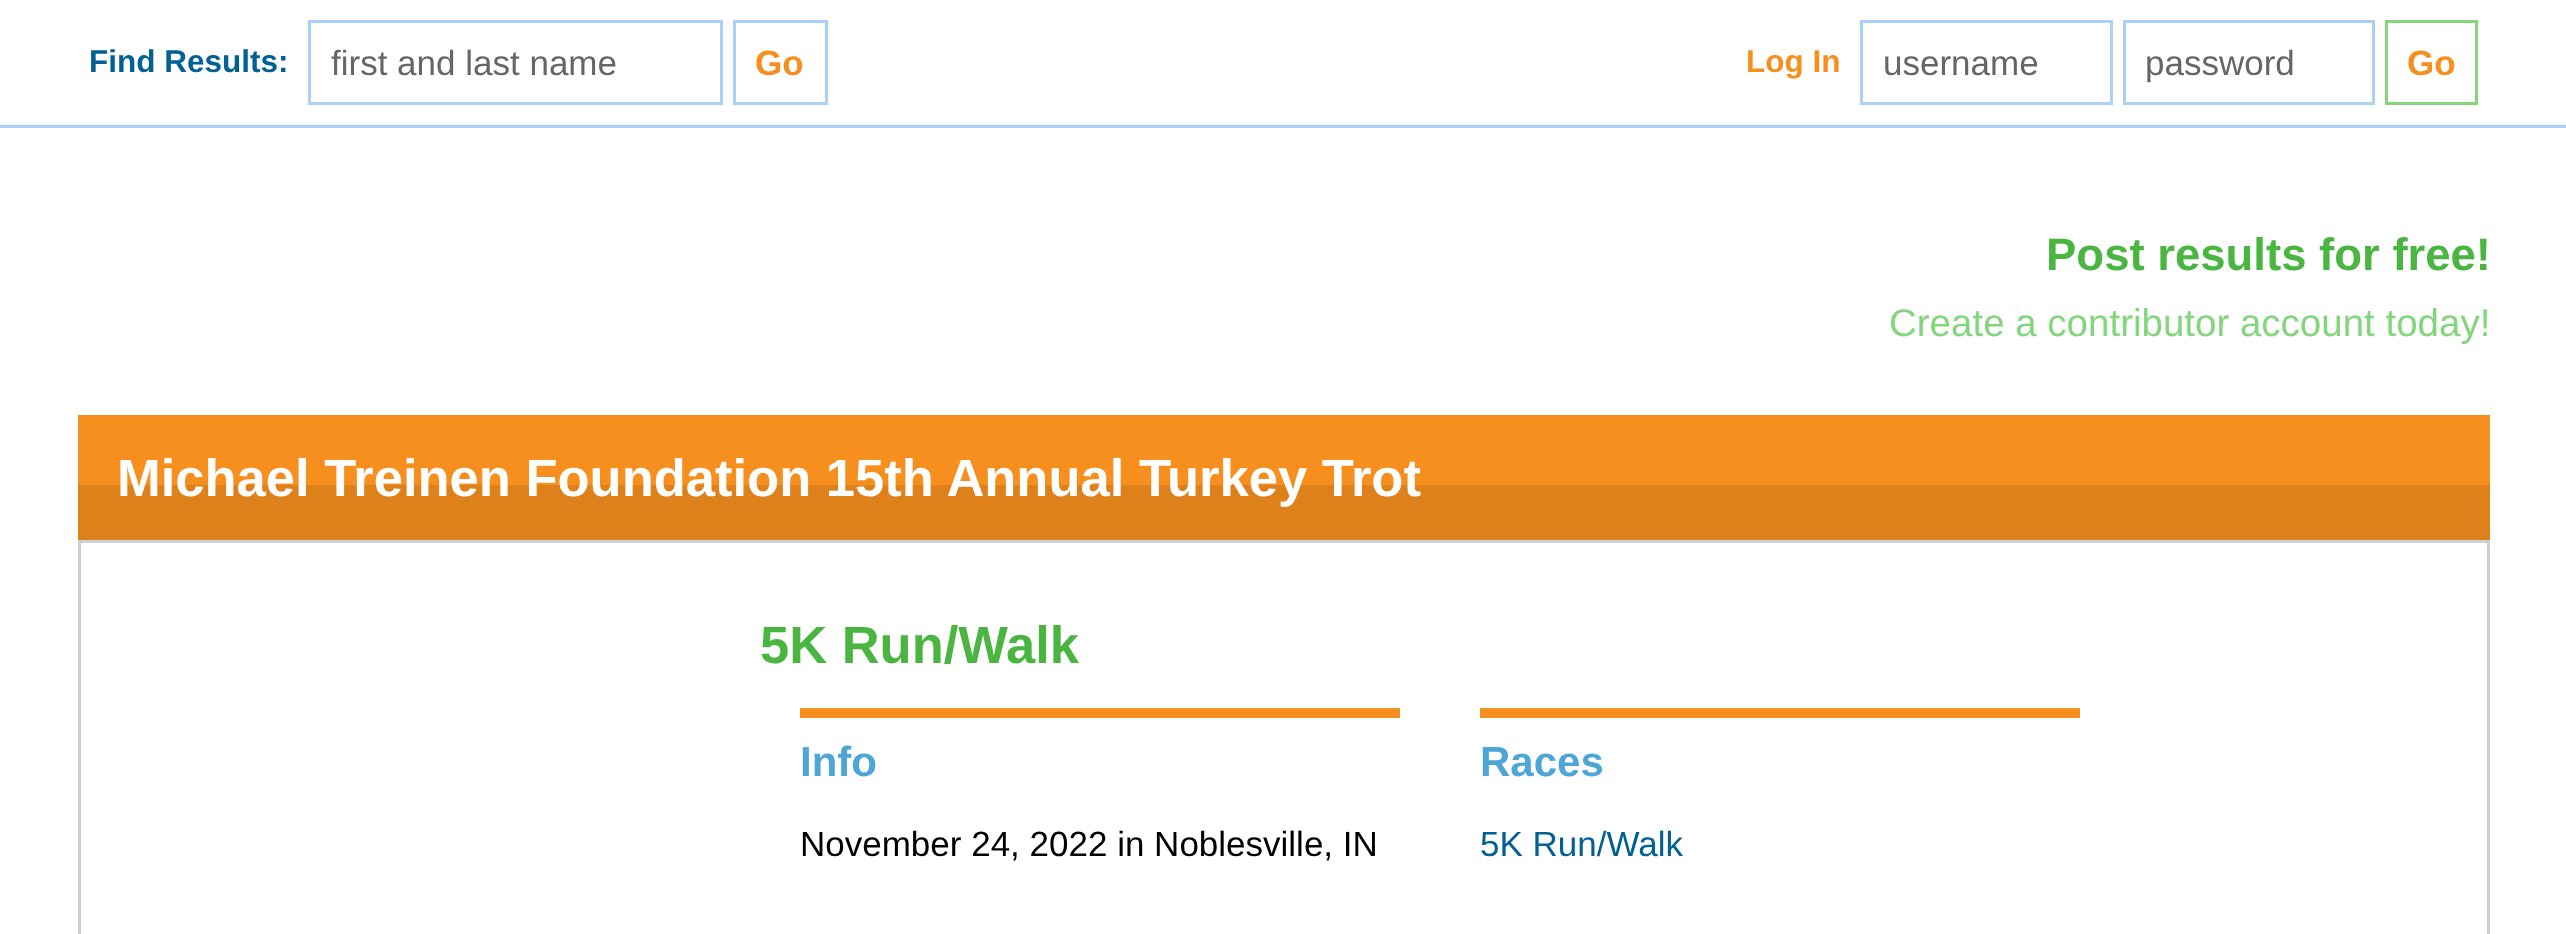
<!DOCTYPE html>
<meta charset="utf-8">
<style>body { margin: 0 } canvas { display: block }</style>
<canvas id="canvas" width="2566" height="934"></canvas>
<script type="module">
  const canvas = document.getElementById("canvas");
  const ctx = canvas.getContext("2d");
  ctx.miterLimit = 4;
  ctx.fontKerning = "normal";

  ctx.fillStyle = "#ffffff";
  ctx.fillRect(0, 0, 2566, 934);
  ctx.fillStyle = "#acd0f7";
  ctx.fillRect(0, 125, 2566, 3);
  ctx.font = "bold 31.5px Liberation Sans";
  ctx.fillStyle = "#036095";
  ctx.fillText("Find Results:", 89, 72);
  ctx.strokeStyle = "#acd0f7";
  ctx.lineWidth = 3;
  ctx.strokeRect(309.5, 21.5, 412, 82);
  ctx.font = "35px Liberation Sans";
  ctx.fillStyle = "#666666";
  ctx.fillText("first and last name", 331, 75);
  ctx.strokeRect(734.5, 21.5, 92, 82);
  ctx.font = "bold 35px Liberation Sans";
  ctx.fillStyle = "#f78f1e";
  ctx.fillText("Go", 755, 75);
  ctx.font = "bold 31.5px Liberation Sans";
  ctx.fillText("Log In", 1746, 72);
  ctx.strokeRect(1861.5, 21.5, 250, 82);
  ctx.font = "35px Liberation Sans";
  ctx.fillStyle = "#666666";
  ctx.fillText("username", 1883, 75);
  ctx.strokeRect(2124.5, 21.5, 249, 82);
  ctx.fillText("password", 2145, 75);
  ctx.strokeStyle = "#84d67d";
  ctx.strokeRect(2386.5, 21.5, 90, 82);
  ctx.font = "bold 35px Liberation Sans";
  ctx.fillStyle = "#f78f1e";
  ctx.fillText("Go", 2407, 75);
  ctx.font = "bold 45.5px Liberation Sans";
  ctx.fillStyle = "#4ab641";
  ctx.fillText("Post results for free!", 2046, 270);
  ctx.font = "38.5px Liberation Sans";
  ctx.fillStyle = "#84d67d";
  ctx.fillText("Create a contributor account today!", 1889, 336);
  ctx.fillStyle = "#f78f1e";
  ctx.fillRect(78, 415, 2412, 70);
  ctx.fillStyle = "#df811b";
  ctx.fillRect(78, 485, 2412, 55);
  ctx.font = "bold 52.5px Liberation Sans";
  ctx.fillStyle = "#ffffff";
  ctx.fillText("Michael Treinen Foundation 15th Annual Turkey Trot", 117, 496);
  ctx.strokeStyle = "#cfcfcf";
  ctx.strokeRect(79.5, 541.5, 2409, 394);
  ctx.fillStyle = "#4ab641";
  ctx.fillText("5K Run/Walk", 760, 663);
  ctx.fillStyle = "#f78f1e";
  ctx.fillRect(800, 708, 600, 10);
  ctx.font = "bold 42px Liberation Sans";
  ctx.fillStyle = "#4da6d6";
  ctx.fillText("Info", 800, 776);
  ctx.font = "35px Liberation Sans";
  ctx.fillStyle = "#000000";
  ctx.fillText("November 24, 2022 in Noblesville, IN", 800, 856);
  ctx.fillStyle = "#f78f1e";
  ctx.fillRect(1480, 708, 600, 10);
  ctx.font = "bold 42px Liberation Sans";
  ctx.fillStyle = "#4da6d6";
  ctx.fillText("Races", 1480, 776);
  ctx.font = "35px Liberation Sans";
  ctx.fillStyle = "#036095";
  ctx.fillText("5K Run/Walk", 1480, 856);
</script>
